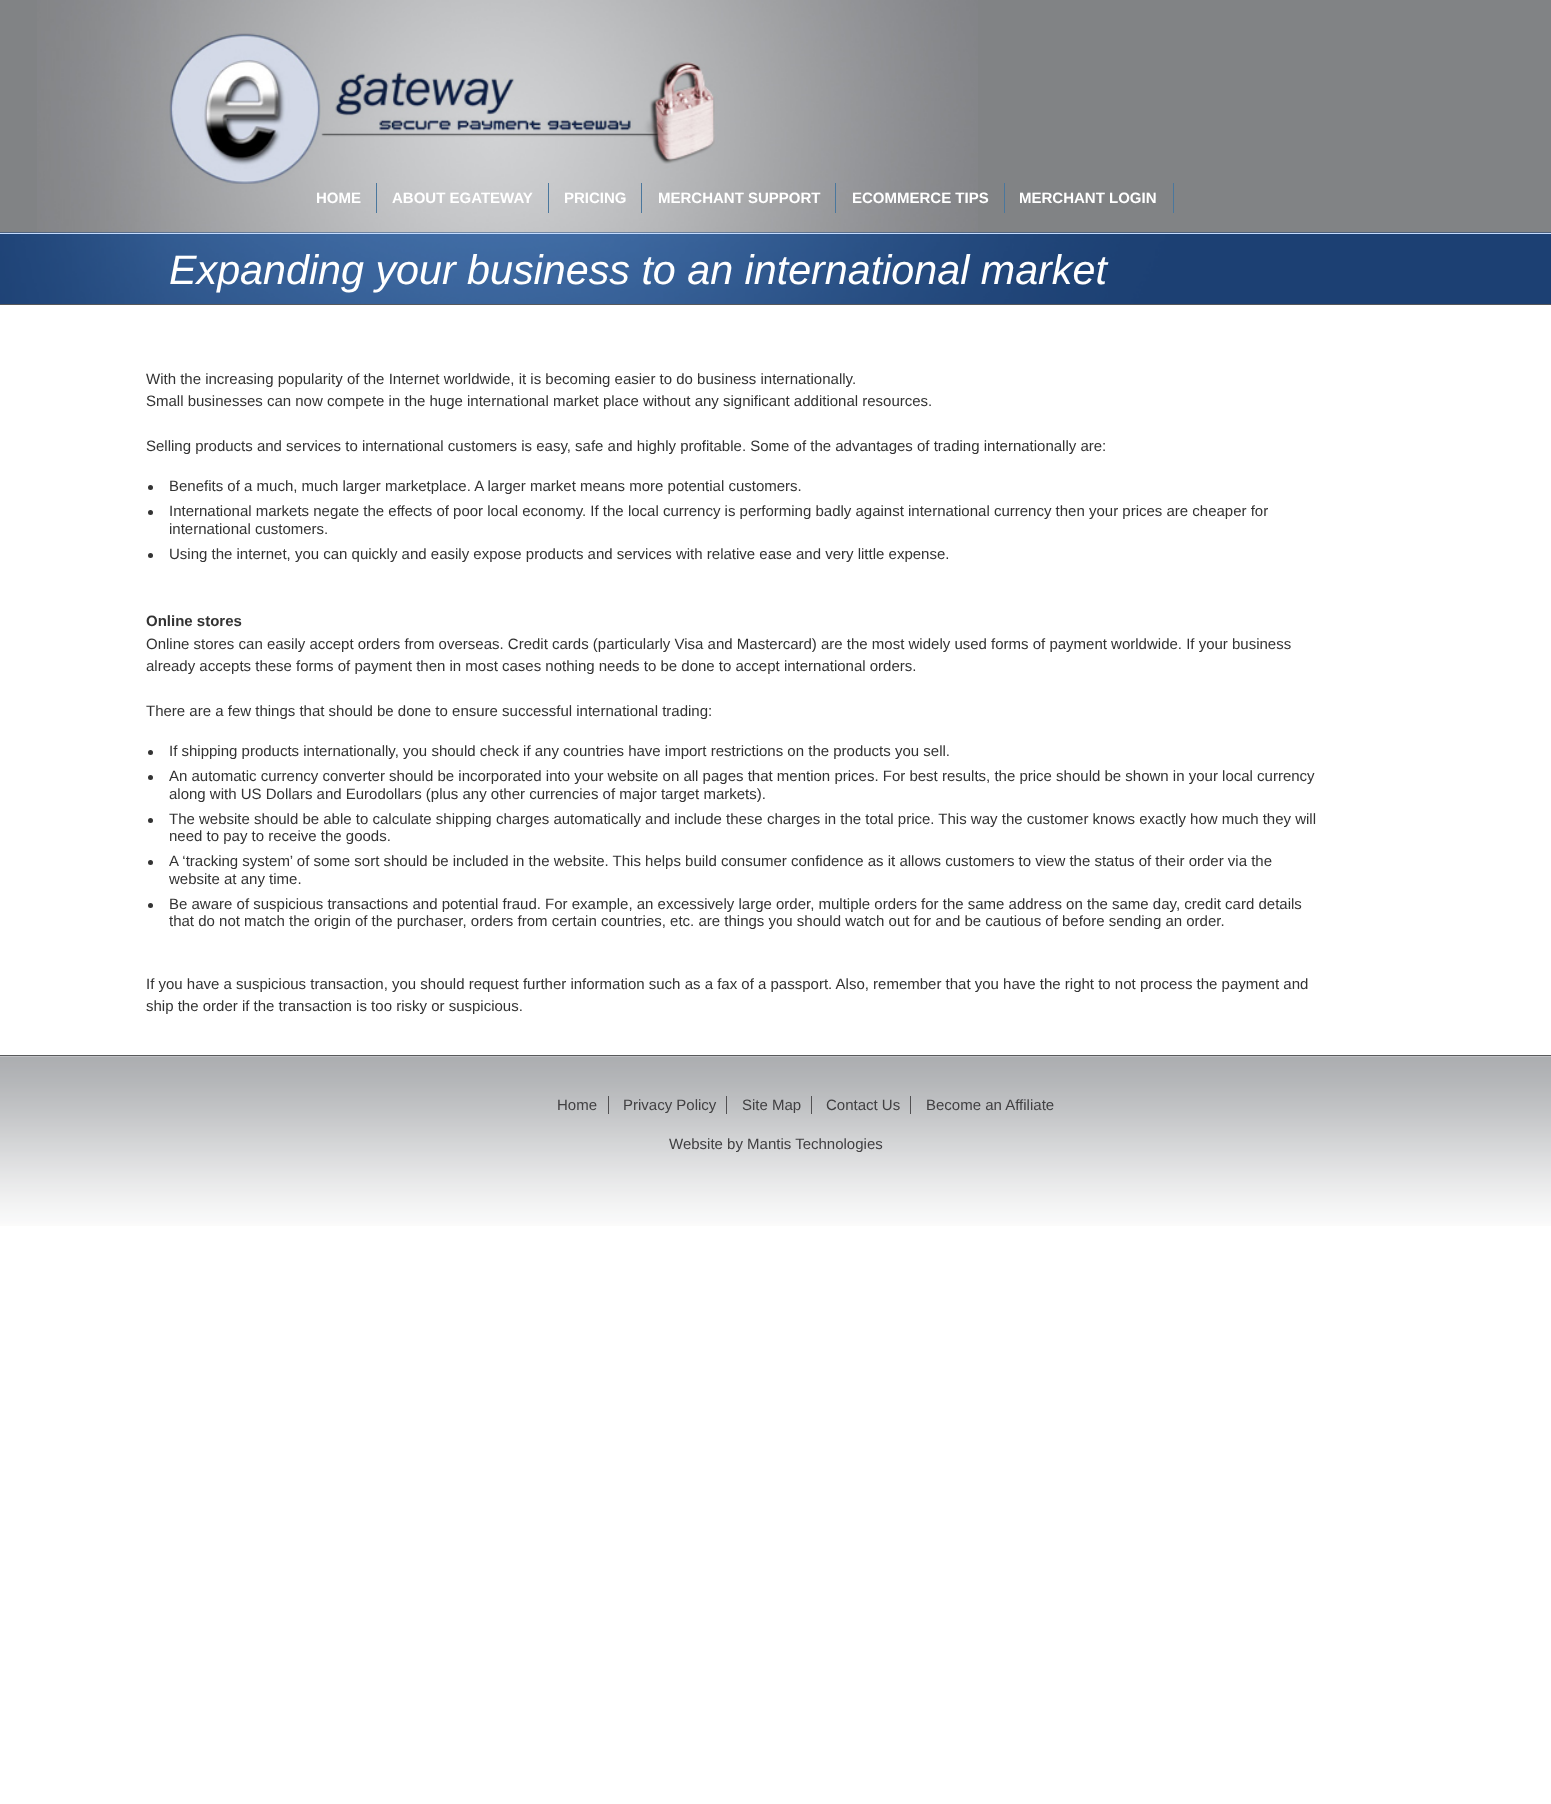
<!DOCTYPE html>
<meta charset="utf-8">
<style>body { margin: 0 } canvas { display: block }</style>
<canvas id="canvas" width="1551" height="1804"></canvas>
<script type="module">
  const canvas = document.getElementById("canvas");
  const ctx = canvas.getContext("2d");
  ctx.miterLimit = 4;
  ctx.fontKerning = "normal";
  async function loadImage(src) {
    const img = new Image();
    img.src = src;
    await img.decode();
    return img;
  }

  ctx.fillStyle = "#ffffff";
  ctx.fillRect(0, 0, 1551, 1804);
  ctx.fillStyle = "#818385";
  ctx.fillRect(0, 0, 1551, 233);
  ctx.drawImage(await loadImage("img1.png"), 37, 0, 941, 233);
  ctx.fillStyle = "#4a779d";
  ctx.fillRect(376, 183, 1, 30);
  ctx.font = "bold 15px Liberation Sans";
  ctx.fillStyle = "#ffffff";
  ctx.fillText("HOME", 316, 203);
  ctx.fillStyle = "#4a779d";
  ctx.fillRect(548, 183, 1, 30);
  ctx.fillStyle = "#ffffff";
  ctx.fillText("ABOUT EGATEWAY", 392, 203);
  ctx.fillStyle = "#4a779d";
  ctx.fillRect(641, 183, 1, 30);
  ctx.fillStyle = "#ffffff";
  ctx.fillText("PRICING", 564, 203);
  ctx.fillStyle = "#4a779d";
  ctx.fillRect(835, 183, 1, 30);
  ctx.fillStyle = "#ffffff";
  ctx.fillText("MERCHANT SUPPORT", 658, 203);
  ctx.fillStyle = "#4a779d";
  ctx.fillRect(1004, 183, 1, 30);
  ctx.fillStyle = "#ffffff";
  ctx.fillText("ECOMMERCE TIPS", 852, 203);
  ctx.fillStyle = "#4a779d";
  ctx.fillRect(1173, 183, 1, 30);
  ctx.fillStyle = "#ffffff";
  ctx.fillText("MERCHANT LOGIN", 1019, 203);
  ctx.drawImage(await loadImage("img2.png"), 0, 232, 1551, 72);
  ctx.fillStyle = "#c3dbff";
  ctx.fillRect(0, 233, 1551, 1);
  ctx.fillStyle = "#58595b";
  ctx.fillRect(0, 304, 1551, 1);
  ctx.font = "italic 41.25px Liberation Sans";
  ctx.fillStyle = "#ffffff";
  ctx.fillText("Expanding your business to an international market", 169, 284);
  ctx.fillStyle = "#58595b";
  ctx.fillRect(0, 1055, 1551, 1);
  ctx.font = "15px Liberation Sans";
  ctx.fillStyle = "#333333";
  ctx.fillText("With the increasing popularity of the Internet worldwide, it is becoming easier to do business internationally.", 146, 384);
  ctx.fillText("Small businesses can now compete in the huge international market place without any significant additional resources.", 146, 406);
  ctx.fillText("Selling products and services to international customers is easy, safe and highly profitable. Some of the advantages of trading internationally are:", 146, 451);
  ctx.beginPath();
  ctx.arc(150.5, 487.5, 2.5, 0, Math.PI * 2);
  ctx.fill();
  ctx.fillText("Benefits of a much, much larger marketplace. A larger market means more potential customers.", 169, 491);
  ctx.beginPath();
  ctx.arc(150.5, 512.5, 2.5, 0, Math.PI * 2);
  ctx.fill();
  ctx.fillText("International markets negate the effects of poor local economy. If the local currency is performing badly against international currency then your prices are cheaper for", 169, 516);
  ctx.fillText("international customers.", 169, 534);
  ctx.beginPath();
  ctx.arc(150.5, 555.5, 2.5, 0, Math.PI * 2);
  ctx.fill();
  ctx.fillText("Using the internet, you can quickly and easily expose products and services with relative ease and very little expense.", 169, 559);
  ctx.font = "bold 15px Liberation Sans";
  ctx.fillText("Online stores", 146, 626);
  ctx.font = "15px Liberation Sans";
  ctx.fillText("Online stores can easily accept orders from overseas. Credit cards (particularly Visa and Mastercard) are the most widely used forms of payment worldwide. If your business", 146, 649);
  ctx.fillText("already accepts these forms of payment then in most cases nothing needs to be done to accept international orders.", 146, 671);
  ctx.fillText("There are a few things that should be done to ensure successful international trading:", 146, 716);
  ctx.beginPath();
  ctx.arc(150.5, 752.5, 2.5, 0, Math.PI * 2);
  ctx.fill();
  ctx.fillText("If shipping products internationally, you should check if any countries have import restrictions on the products you sell.", 169, 756);
  ctx.beginPath();
  ctx.arc(150.5, 777.5, 2.5, 0, Math.PI * 2);
  ctx.fill();
  ctx.fillText("An automatic currency converter should be incorporated into your website on all pages that mention prices. For best results, the price should be shown in your local currency", 169, 781);
  ctx.fillText("along with US Dollars and Eurodollars (plus any other currencies of major target markets).", 169, 799);
  ctx.beginPath();
  ctx.arc(150.5, 820.5, 2.5, 0, Math.PI * 2);
  ctx.fill();
  ctx.fillText("The website should be able to calculate shipping charges automatically and include these charges in the total price. This way the customer knows exactly how much they will", 169, 824);
  ctx.fillText("need to pay to receive the goods.", 169, 841);
  ctx.beginPath();
  ctx.arc(150.5, 862.5, 2.5, 0, Math.PI * 2);
  ctx.fill();
  ctx.fillText("A ‘tracking system’ of some sort should be included in the website. This helps build consumer confidence as it allows customers to view the status of their order via the", 169, 866);
  ctx.fillText("website at any time.", 169, 884);
  ctx.beginPath();
  ctx.arc(150.5, 905.5, 2.5, 0, Math.PI * 2);
  ctx.fill();
  ctx.fillText("Be aware of suspicious transactions and potential fraud. For example, an excessively large order, multiple orders for the same address on the same day, credit card details", 169, 909);
  ctx.fillText("that do not match the origin of the purchaser, orders from certain countries, etc. are things you should watch out for and be cautious of before sending an order.", 169, 926);
  ctx.fillText("If you have a suspicious transaction, you should request further information such as a fax of a passport. Also, remember that you have the right to not process the payment and", 146, 989);
  ctx.fillText("ship the order if the transaction is too risky or suspicious.", 146, 1011);
  ctx.drawImage(await loadImage("img3.png"), 0, 1056, 1551, 170);
  ctx.fillStyle = "#414042";
  ctx.fillText("Home", 557, 1110);
  ctx.fillStyle = "#515052";
  ctx.fillRect(608, 1096, 1, 18);
  ctx.fillStyle = "#414042";
  ctx.fillText("Privacy Policy", 623, 1110);
  ctx.fillStyle = "#515052";
  ctx.fillRect(726, 1096, 1, 18);
  ctx.fillStyle = "#414042";
  ctx.fillText("Site Map", 742, 1110);
  ctx.fillStyle = "#515052";
  ctx.fillRect(811, 1096, 1, 18);
  ctx.fillStyle = "#414042";
  ctx.fillText("Contact Us", 826, 1110);
  ctx.fillStyle = "#515052";
  ctx.fillRect(910, 1096, 1, 18);
  ctx.fillStyle = "#414042";
  ctx.fillText("Become an Affiliate", 926, 1110);
  ctx.fillText("Website by Mantis Technologies", 669, 1149);
</script>
